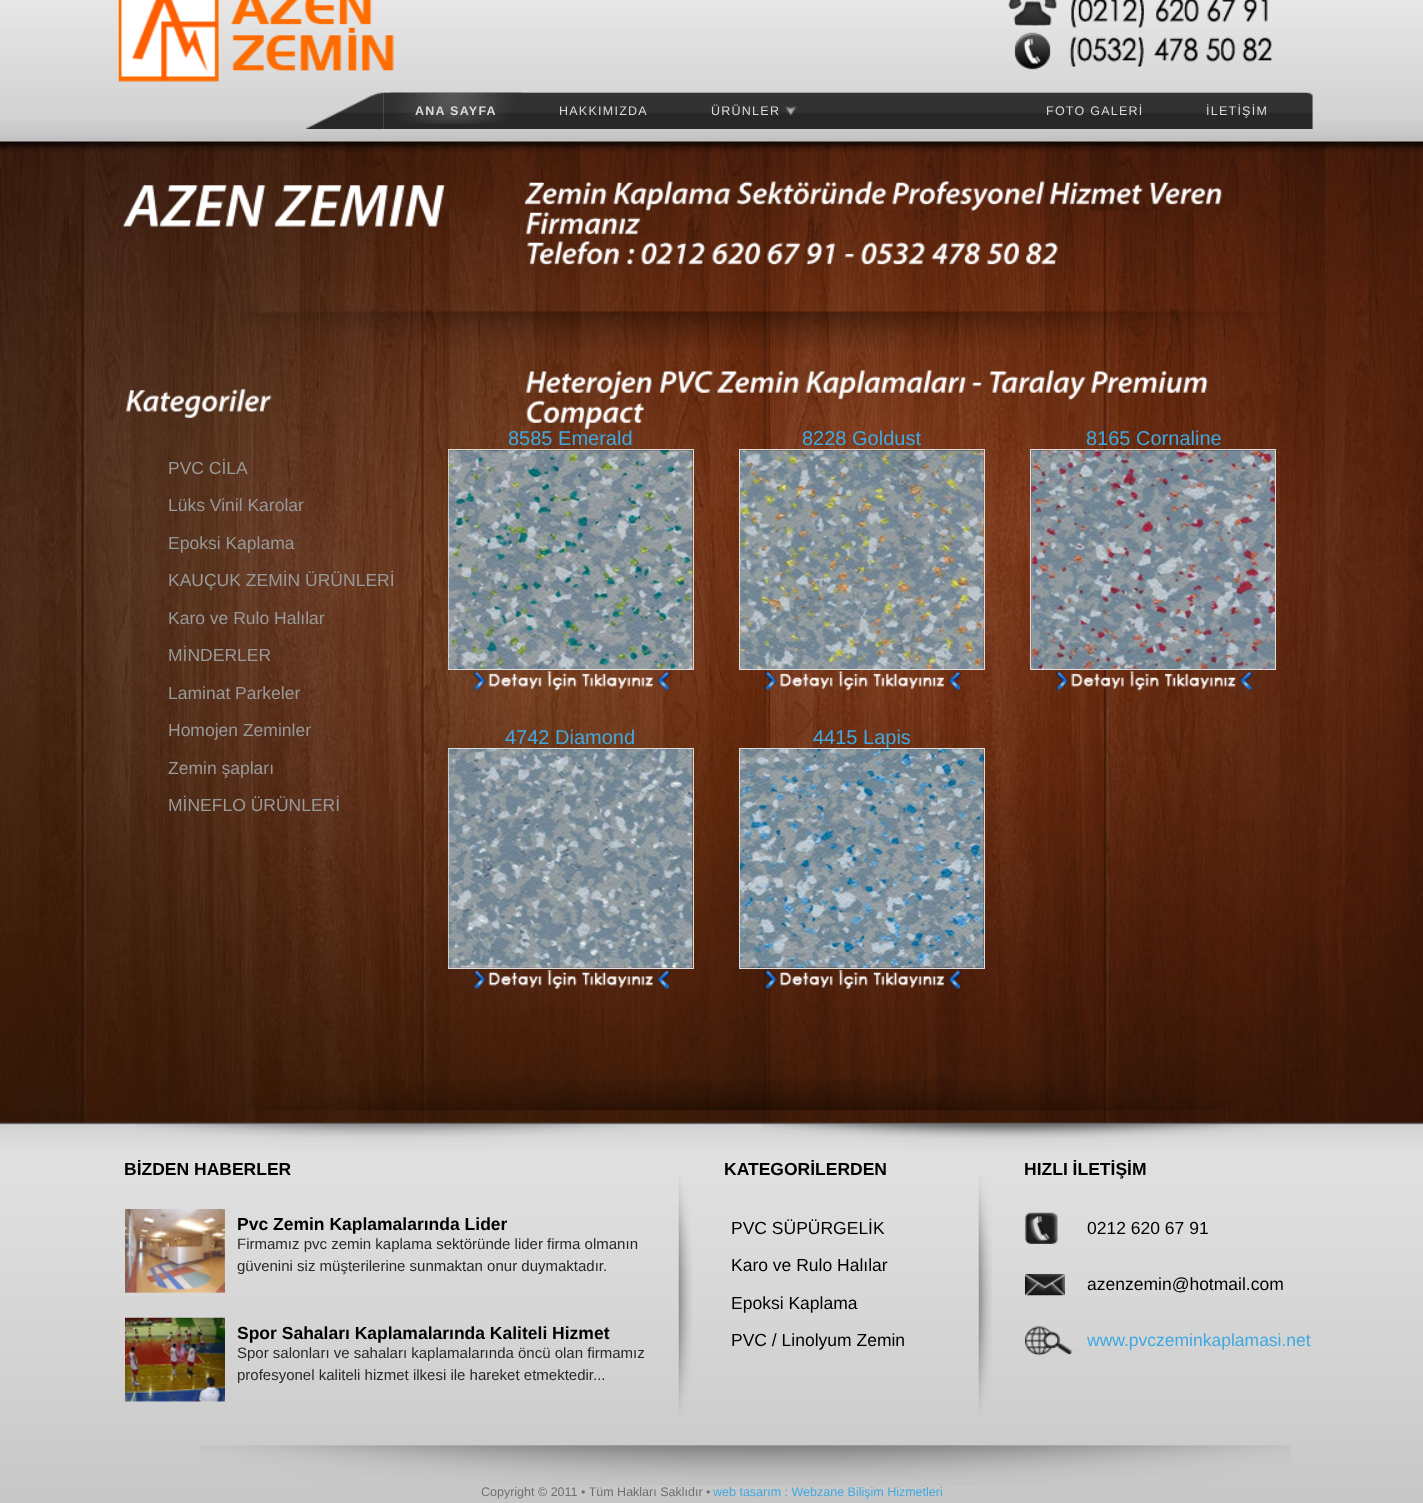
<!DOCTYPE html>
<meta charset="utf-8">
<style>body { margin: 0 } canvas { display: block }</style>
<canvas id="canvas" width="1423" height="1503"></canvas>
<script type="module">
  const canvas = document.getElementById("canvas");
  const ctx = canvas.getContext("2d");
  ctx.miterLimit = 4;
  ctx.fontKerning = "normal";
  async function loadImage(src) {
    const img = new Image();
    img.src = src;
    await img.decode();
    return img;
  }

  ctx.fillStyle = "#ffffff";
  ctx.fillRect(0, 0, 1423, 1503);
  ctx.drawImage(await loadImage("img1.png"), 0, 0, 1423, 1123);
  ctx.drawImage(await loadImage("img2.png"), 118, 0, 276, 82);
  ctx.drawImage(await loadImage("img3.png"), 1008, 0, 264, 70);
  ctx.drawImage(await loadImage("img4.png"), 305, 92, 79, 37);
  ctx.drawImage(await loadImage("img5.png"), 383, 92, 917, 37);
  ctx.drawImage(await loadImage("img6.png"), 390, 92, 132, 32);
  ctx.letterSpacing = "1.25px";
  ctx.font = "bold 12.5px Liberation Sans";
  ctx.fillStyle = "#dbdbdb";
  ctx.fillText("ANA SAYFA", 415, 115);
  ctx.font = "12.5px Liberation Sans";
  ctx.fillText("HAKKIMIZDA", 559, 115);
  ctx.fillText("ÜRÜNLER", 711, 115);
  ctx.drawImage(await loadImage("img7.png"), 785, 106, 12, 10);
  ctx.fillText("FOTO GALERİ", 1046, 115);
  ctx.fillText("İLETİŞİM", 1206, 115);
  ctx.drawImage(await loadImage("img8.png"), 1300, 92, 13, 37);
  ctx.drawImage(await loadImage("img9.png"), 122, 185, 144, 42);
  ctx.drawImage(await loadImage("img10.png"), 274, 185, 171, 42);
  ctx.drawImage(await loadImage("img11.png"), 524, 181, 83, 24);
  ctx.drawImage(await loadImage("img12.png"), 613, 181, 118, 30);
  ctx.drawImage(await loadImage("img13.png"), 736, 181, 151, 24);
  ctx.drawImage(await loadImage("img14.png"), 892, 181, 153, 31);
  ctx.drawImage(await loadImage("img15.png"), 1049, 181, 94, 24);
  ctx.drawImage(await loadImage("img16.png"), 1149, 182, 73, 23);
  ctx.drawImage(await loadImage("img17.png"), 526, 211, 115, 24);
  ctx.drawImage(await loadImage("img18.png"), 527, 241, 92, 24);
  ctx.drawImage(await loadImage("img19.png"), 627, 247, 9, 18);
  ctx.drawImage(await loadImage("img20.png"), 641, 242, 65, 23);
  ctx.drawImage(await loadImage("img21.png"), 712, 242, 49, 23);
  ctx.drawImage(await loadImage("img22.png"), 767, 242, 34, 23);
  ctx.drawImage(await loadImage("img23.png"), 806, 242, 30, 23);
  ctx.drawImage(await loadImage("img24.png"), 844, 253, 10, 5);
  ctx.drawImage(await loadImage("img25.png"), 861, 242, 65, 23);
  ctx.drawImage(await loadImage("img26.png"), 931, 242, 50, 23);
  ctx.drawImage(await loadImage("img27.png"), 986, 242, 34, 23);
  ctx.drawImage(await loadImage("img28.png"), 1026, 242, 32, 23);
  ctx.drawImage(await loadImage("img29.png"), 239, 311, 1039, 37);
  ctx.drawImage(await loadImage("img30.png"), 126, 388, 146, 30);
  ctx.letterSpacing = "0px";
  ctx.font = "17.5px Liberation Sans";
  ctx.fillStyle = "#999999";
  ctx.fillText("PVC CİLA", 168, 474);
  ctx.fillText("Lüks Vinil Karolar", 168, 511);
  ctx.fillText("Epoksi Kaplama", 168, 549);
  ctx.fillText("KAUÇUK ZEMİN ÜRÜNLERİ", 168, 586);
  ctx.fillText("Karo ve Rulo Halılar", 168, 624);
  ctx.fillText("MİNDERLER", 168, 661);
  ctx.fillText("Laminat Parkeler", 168, 699);
  ctx.fillText("Homojen Zeminler", 168, 736);
  ctx.fillText("Zemin şapları", 168, 774);
  ctx.fillText("MİNEFLO ÜRÜNLERİ", 168, 811);
  ctx.drawImage(await loadImage("img31.png"), 526, 370, 126, 30);
  ctx.drawImage(await loadImage("img32.png"), 659, 370, 54, 23);
  ctx.drawImage(await loadImage("img33.png"), 717, 370, 82, 23);
  ctx.drawImage(await loadImage("img34.png"), 806, 370, 161, 30);
  ctx.drawImage(await loadImage("img35.png"), 972, 382, 10, 5);
  ctx.drawImage(await loadImage("img36.png"), 989, 370, 97, 31);
  ctx.drawImage(await loadImage("img37.png"), 1091, 370, 117, 23);
  ctx.drawImage(await loadImage("img38.png"), 526, 400, 118, 30);
  ctx.font = "20px Liberation Sans";
  ctx.fillStyle = "#40a9e0";
  ctx.fillText("8585 Emerald", 508, 445);
  ctx.strokeStyle = "#dddddd";
  ctx.strokeRect(448.5, 449.5, 245, 220);
  ctx.drawImage(await loadImage("img39.png"), 448, 450, 245, 219);
  ctx.drawImage(await loadImage("img40.png"), 473, 671, 198, 20);
  ctx.fillText("8228 Goldust", 802, 445);
  ctx.strokeRect(739.5, 449.5, 245, 220);
  ctx.drawImage(await loadImage("img41.png"), 740, 450, 244, 219);
  ctx.drawImage(await loadImage("img42.png"), 765, 671, 197, 20);
  ctx.fillText("8165 Cornaline", 1086, 445);
  ctx.strokeRect(1030.5, 449.5, 245, 220);
  ctx.drawImage(await loadImage("img43.png"), 1031, 450, 244, 219);
  ctx.drawImage(await loadImage("img44.png"), 1056, 671, 197, 20);
  ctx.fillText("4742 Diamond", 505, 744);
  ctx.strokeRect(448.5, 748.5, 245, 220);
  ctx.drawImage(await loadImage("img45.png"), 448, 749, 245, 219);
  ctx.drawImage(await loadImage("img46.png"), 473, 970, 197, 19);
  ctx.fillText("4415 Lapis", 813, 744);
  ctx.strokeRect(739.5, 748.5, 245, 220);
  ctx.drawImage(await loadImage("img47.png"), 740, 749, 244, 219);
  ctx.drawImage(await loadImage("img48.png"), 765, 970, 197, 19);
  ctx.drawImage(await loadImage("img49.png"), 247, 1079, 993, 32);
  ctx.drawImage(await loadImage("img50.png"), 0, 1122, 1423, 381);
  ctx.font = "bold 17.5px Liberation Sans";
  ctx.fillStyle = "#000000";
  ctx.fillText("BİZDEN HABERLER", 124, 1175);
  ctx.drawImage(await loadImage("img51.png"), 125, 1209, 100, 84);
  ctx.fillText("Pvc Zemin Kaplamalarında Lider", 237, 1230);
  ctx.font = "15px Liberation Sans";
  ctx.fillStyle = "#282828";
  ctx.fillText("Firmamız pvc zemin kaplama sektöründe lider firma olmanın", 237, 1249);
  ctx.fillText("güvenini siz müşterilerine sunmaktan onur duymaktadır.", 237, 1271);
  ctx.drawImage(await loadImage("img52.png"), 125, 1317, 100, 85);
  ctx.font = "bold 17.5px Liberation Sans";
  ctx.fillStyle = "#000000";
  ctx.fillText("Spor Sahaları Kaplamalarında Kaliteli Hizmet", 237, 1339);
  ctx.font = "15px Liberation Sans";
  ctx.fillStyle = "#282828";
  ctx.fillText("Spor salonları ve sahaları kaplamalarında öncü olan firmamız", 237, 1358);
  ctx.fillText("profesyonel kaliteli hizmet ilkesi ile hareket etmektedir...", 237, 1380);
  ctx.drawImage(await loadImage("img53.png"), 678, 1176, 14, 238);
  ctx.font = "bold 17.5px Liberation Sans";
  ctx.fillStyle = "#000000";
  ctx.fillText("KATEGORİLERDEN", 724, 1175);
  ctx.font = "17.5px Liberation Sans";
  ctx.fillText("PVC SÜPÜRGELİK", 731, 1234);
  ctx.fillText("Karo ve Rulo Halılar", 731, 1271);
  ctx.fillText("Epoksi Kaplama", 731, 1309);
  ctx.fillText("PVC / Linolyum Zemin", 731, 1346);
  ctx.drawImage(await loadImage("img53.png"), 978, 1176, 14, 238);
  ctx.font = "bold 17.5px Liberation Sans";
  ctx.fillText("HIZLI İLETİŞİM", 1024, 1175);
  ctx.drawImage(await loadImage("img54.png"), 1025, 1212, 33, 32);
  ctx.font = "17.5px Liberation Sans";
  ctx.fillText("0212 620 67 91", 1087, 1234);
  ctx.drawImage(await loadImage("img55.png"), 1025, 1274, 40, 22);
  ctx.fillText("azenzemin@hotmail.com", 1087, 1290);
  ctx.drawImage(await loadImage("img56.png"), 1025, 1326, 48, 30);
  ctx.fillStyle = "#40a9e0";
  ctx.fillText("www.pvczeminkaplamasi.net", 1087, 1346);
  ctx.drawImage(await loadImage("img57.png"), 199, 1445, 1092, 41);
  ctx.font = "12.5px Liberation Sans";
  ctx.fillStyle = "#6f6f6f";
  ctx.fillText("Copyright © 2011 • Tüm Hakları Saklıdır •", 481, 1496);
  ctx.fillStyle = "#40a9e0";
  ctx.fillText("web tasarım : Webzane Bilişim Hizmetleri", 713, 1496);
</script>
